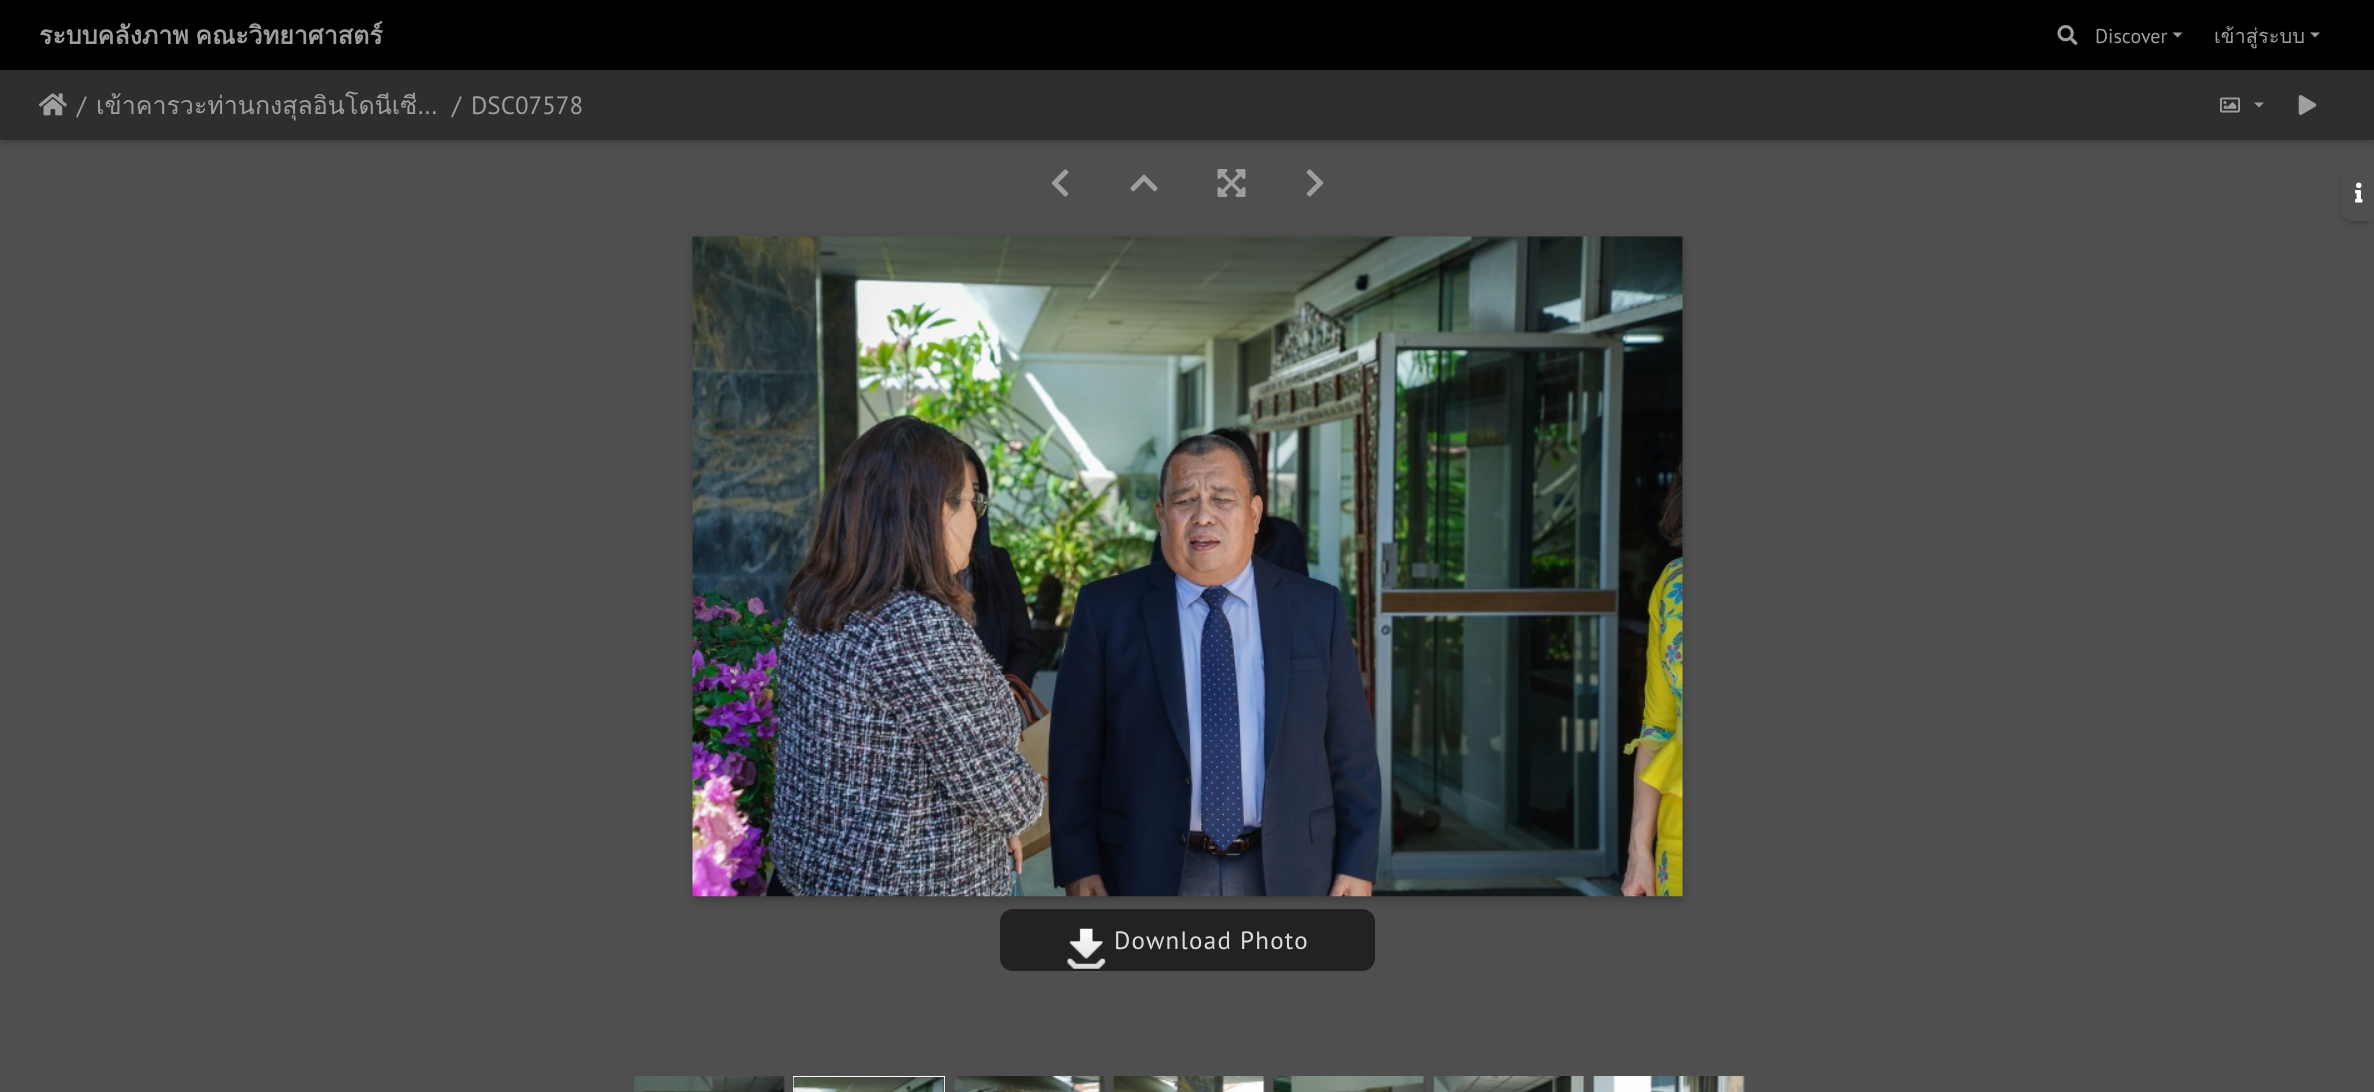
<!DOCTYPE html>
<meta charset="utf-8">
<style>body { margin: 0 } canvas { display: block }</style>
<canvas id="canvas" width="2374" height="1092"></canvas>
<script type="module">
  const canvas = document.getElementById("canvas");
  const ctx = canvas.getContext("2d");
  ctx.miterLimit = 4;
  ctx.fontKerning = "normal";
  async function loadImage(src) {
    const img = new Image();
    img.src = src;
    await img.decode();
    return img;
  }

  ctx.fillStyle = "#4f4f4f";
  ctx.fillRect(0, 0, 2374, 1092);
  ctx.fillStyle = "rgba(0, 0, 0, 0.2)";
  ctx.filter = "blur(3px)";
  ctx.beginPath();
  ctx.rect(1, 75, 2373, 68);
  ctx.fill();
  ctx.filter = "none";
  ctx.fillStyle = "#000000";
  ctx.fillRect(0, 0, 2374, 70);
  ctx.wordSpacing = "-2px";
  ctx.font = "bold 25px Loma";
  ctx.fillStyle = "#9e9e9e";
  ctx.fillText("ระบบคลังภาพ คณะวิทยาศาสตร์", 39, 44);
  ctx.drawImage(await loadImage("img1.png"), 2057, 25, 21, 20);
  ctx.wordSpacing = "0px";
  ctx.font = "20px PT Sans";
  ctx.fillText("Discover", 2095, 43);
  ctx.beginPath();
  ctx.moveTo(2172.5, 32.5);
  ctx.lineTo(2182.5, 32.5);
  ctx.lineTo(2177.5, 37.5);
  ctx.closePath();
  ctx.fill();
  ctx.font = "20px Loma";
  ctx.fillText("เข้าสู่ระบบ", 2214, 43);
  ctx.beginPath();
  ctx.moveTo(2310, 32.5);
  ctx.lineTo(2320, 32.5);
  ctx.lineTo(2315, 37.5);
  ctx.closePath();
  ctx.fill();
  ctx.fillStyle = "#2e2e2e";
  ctx.fillRect(0, 70, 2374, 70);
  ctx.drawImage(await loadImage("img2.png"), 39, 93, 28, 23);
  ctx.font = "25px PT Sans";
  ctx.fillStyle = "#9e9e9e";
  ctx.fillText("/", 77, 114);
  ctx.wordSpacing = "-1px";
  ctx.font = "25px Loma";
  ctx.fillText("เข้าคารวะท่านกงสุลอินโดนีเซี…", 96, 114);
  ctx.wordSpacing = "0px";
  ctx.font = "25px PT Sans";
  ctx.fillText("/", 452, 114);
  ctx.fillText("DSC07578", 471, 114);
  ctx.drawImage(await loadImage("img3.png"), 2220, 97, 20, 16);
  ctx.beginPath();
  ctx.moveTo(2254, 102.5);
  ctx.lineTo(2264, 102.5);
  ctx.lineTo(2259, 107.5);
  ctx.closePath();
  ctx.fill();
  ctx.drawImage(await loadImage("img4.png"), 2298, 95, 19, 20);
  ctx.drawImage(await loadImage("img5.png"), 1051, 169, 18, 28);
  ctx.drawImage(await loadImage("img6.png"), 1130, 174, 28, 18);
  ctx.drawImage(await loadImage("img7.png"), 1217, 169, 29, 28);
  ctx.drawImage(await loadImage("img8.png"), 1306, 169, 18, 28);
  ctx.fillStyle = "rgba(0, 0, 0, 0.2)";
  ctx.filter = "blur(3px)";
  ctx.beginPath();
  ctx.roundRect(2343, 169, 31, 55, 11);
  ctx.fill();
  ctx.filter = "none";
  ctx.fillStyle = "#4f4f4f";
  ctx.beginPath();
  ctx.moveTo(2354, 164);
  ctx.lineTo(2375, 164);
  ctx.lineTo(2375, 221);
  ctx.lineTo(2354, 221);
  ctx.bezierCurveTo(2347, 221, 2341, 215, 2341, 208);
  ctx.lineTo(2341, 177);
  ctx.bezierCurveTo(2341, 170, 2347, 164, 2354, 164);
  ctx.closePath();
  ctx.fill();
  ctx.beginPath();
  ctx.moveTo(2354, 164);
  ctx.lineTo(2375, 164);
  ctx.lineTo(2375, 221);
  ctx.lineTo(2354, 221);
  ctx.bezierCurveTo(2347, 221, 2341, 216, 2341, 209);
  ctx.lineTo(2341, 176);
  ctx.bezierCurveTo(2341, 169, 2347, 164, 2354, 164);
  ctx.closePath();
  ctx.moveTo(2354, 165);
  ctx.lineTo(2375, 165);
  ctx.lineTo(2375, 220);
  ctx.lineTo(2354, 220);
  ctx.bezierCurveTo(2348, 220, 2342, 215, 2342, 209);
  ctx.lineTo(2342, 176);
  ctx.bezierCurveTo(2342, 170, 2348, 165, 2354, 165);
  ctx.closePath();
  ctx.fill("evenodd");
  ctx.drawImage(await loadImage("img9.png"), 2355, 182, 8, 21);
  ctx.fillStyle = "#222222";
  ctx.beginPath();
  ctx.roundRect(1000, 909, 375, 62, 13);
  ctx.fill();
  ctx.save();
  ctx.beginPath();
  ctx.moveTo(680, 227);
  ctx.lineTo(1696, 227);
  ctx.lineTo(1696, 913);
  ctx.lineTo(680, 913);
  ctx.closePath();
  ctx.moveTo(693, 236);
  ctx.lineTo(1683, 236);
  ctx.lineTo(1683, 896);
  ctx.lineTo(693, 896);
  ctx.closePath();
  ctx.clip("evenodd");
  ctx.fillStyle = "rgba(0, 0, 0, 0.23)";
  ctx.filter = "blur(4px)";
  ctx.beginPath();
  ctx.rect(693, 240, 990, 660);
  ctx.fill();
  ctx.filter = "none";
  ctx.restore();
  ctx.drawImage(await loadImage("img10.png"), 692, 236, 991, 661);
  ctx.drawImage(await loadImage("img11.png"), 1067, 928, 39, 41);
  ctx.letterSpacing = "1.25px";
  ctx.fillStyle = "#dddddd";
  ctx.fillText("Download Photo", 1114, 949);
  ctx.fillStyle = "rgba(0, 0, 0, 0.24)";
  ctx.filter = "blur(1px)";
  ctx.beginPath();
  ctx.rect(634, 1078, 150, 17);
  ctx.fill();
  ctx.filter = "none";
  ctx.drawImage(await loadImage("img12.png"), 633, 1076, 152, 16);
  ctx.filter = "blur(1px)";
  ctx.beginPath();
  ctx.rect(793, 1078, 152, 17);
  ctx.fill();
  ctx.filter = "none";
  ctx.strokeStyle = "#ffffff";
  ctx.strokeRect(793.5, 1076.5, 151, 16);
  ctx.drawImage(await loadImage("img13.png"), 793, 1077, 152, 15);
  ctx.filter = "blur(1px)";
  ctx.beginPath();
  ctx.rect(954, 1078, 150, 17);
  ctx.fill();
  ctx.filter = "none";
  ctx.drawImage(await loadImage("img14.png"), 953, 1076, 152, 16);
  ctx.filter = "blur(1px)";
  ctx.beginPath();
  ctx.rect(1114, 1078, 150, 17);
  ctx.fill();
  ctx.filter = "none";
  ctx.drawImage(await loadImage("img15.png"), 1113, 1076, 152, 16);
  ctx.filter = "blur(1px)";
  ctx.beginPath();
  ctx.rect(1274, 1078, 150, 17);
  ctx.fill();
  ctx.filter = "none";
  ctx.drawImage(await loadImage("img16.png"), 1273, 1076, 152, 16);
  ctx.filter = "blur(1px)";
  ctx.beginPath();
  ctx.rect(1434, 1078, 150, 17);
  ctx.fill();
  ctx.filter = "none";
  ctx.drawImage(await loadImage("img17.png"), 1433, 1076, 152, 16);
  ctx.filter = "blur(1px)";
  ctx.beginPath();
  ctx.rect(1594, 1078, 150, 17);
  ctx.fill();
  ctx.filter = "none";
  ctx.drawImage(await loadImage("img18.png"), 1593, 1076, 152, 16);
</script>
